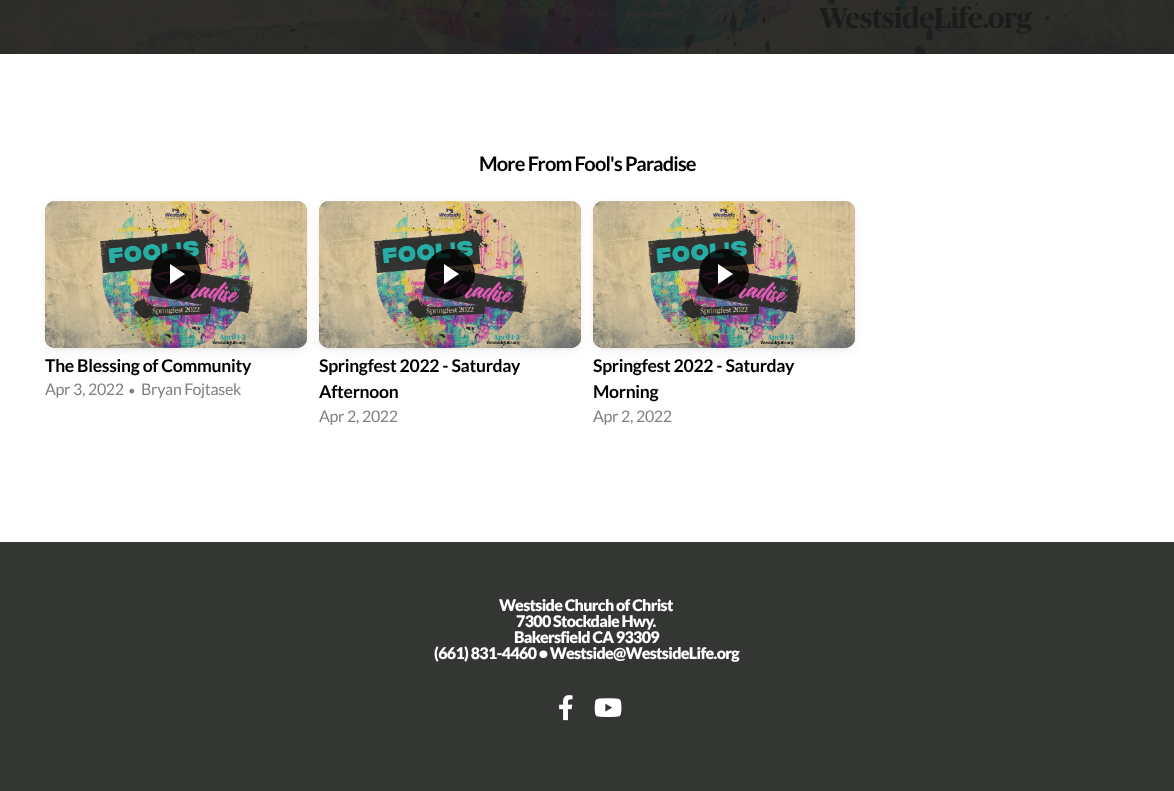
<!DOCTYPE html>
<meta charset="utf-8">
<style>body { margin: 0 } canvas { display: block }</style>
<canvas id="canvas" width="1174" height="791"></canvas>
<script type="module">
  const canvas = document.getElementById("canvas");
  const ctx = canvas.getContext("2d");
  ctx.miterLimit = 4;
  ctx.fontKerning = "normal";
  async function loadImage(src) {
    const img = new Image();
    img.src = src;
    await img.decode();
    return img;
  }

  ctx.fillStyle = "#ffffff";
  ctx.fillRect(0, 0, 1174, 791);
  ctx.drawImage(await loadImage("img1.png"), 0, 0, 1174, 54);
  ctx.letterSpacing = "-0.8px";
  ctx.font = "bold 20px Lato";
  ctx.fillStyle = "#000000";
  ctx.fillText("More From Fool's Paradise", 479, 171);
  ctx.fillStyle = "rgba(0, 0, 0, 0.04)";
  ctx.filter = "blur(1px)";
  ctx.beginPath();
  ctx.roundRect(45, 202, 262, 147, 10);
  ctx.fill();
  ctx.filter = "none";
  ctx.fillStyle = "rgba(0, 0, 0, 0.06)";
  ctx.filter = "blur(5px)";
  ctx.beginPath();
  ctx.roundRect(45, 204, 262, 147, 10);
  ctx.fill();
  ctx.filter = "none";
  ctx.fillStyle = "#8c8575";
  ctx.beginPath();
  ctx.roundRect(45, 201, 262, 147, 10);
  ctx.fill();
  ctx.drawImage(await loadImage("img2.png"), 45, 201, 262, 147);
  ctx.fillStyle = "rgba(0, 0, 0, 0.8)";
  ctx.beginPath();
  ctx.arc(176, 274, 25, 0, Math.PI * 2);
  ctx.fill();
  ctx.fillStyle = "#ffffff";
  ctx.beginPath();
  ctx.moveTo(170, 284);
  ctx.lineTo(170, 264);
  ctx.lineTo(185, 274);
  ctx.closePath();
  ctx.fill();
  ctx.letterSpacing = "-0.3px";
  ctx.font = "bold 17.6px Lato";
  ctx.fillStyle = "#000000";
  ctx.fillText("The Blessing of Community", 45, 372);
  ctx.font = "16px Lato";
  ctx.fillStyle = "#808080";
  ctx.fillText("Apr 3, 2022", 45, 395);
  ctx.font = "13px Lato";
  ctx.fillText("•", 128, 395);
  ctx.font = "16px Lato";
  ctx.fillText("Bryan Fojtasek", 141, 395);
  ctx.fillStyle = "rgba(0, 0, 0, 0.04)";
  ctx.filter = "blur(1px)";
  ctx.beginPath();
  ctx.roundRect(319, 202, 262, 147, 10);
  ctx.fill();
  ctx.filter = "none";
  ctx.fillStyle = "rgba(0, 0, 0, 0.06)";
  ctx.filter = "blur(5px)";
  ctx.beginPath();
  ctx.roundRect(319, 204, 262, 147, 10);
  ctx.fill();
  ctx.filter = "none";
  ctx.fillStyle = "#8c8575";
  ctx.beginPath();
  ctx.roundRect(319, 201, 262, 147, 10);
  ctx.fill();
  ctx.drawImage(await loadImage("img3.png"), 319, 201, 262, 147);
  ctx.fillStyle = "rgba(0, 0, 0, 0.8)";
  ctx.beginPath();
  ctx.arc(450, 274, 25, 0, Math.PI * 2);
  ctx.fill();
  ctx.fillStyle = "#ffffff";
  ctx.beginPath();
  ctx.moveTo(444, 284);
  ctx.lineTo(444, 264);
  ctx.lineTo(459, 274);
  ctx.closePath();
  ctx.fill();
  ctx.font = "bold 17.6px Lato";
  ctx.fillStyle = "#000000";
  ctx.fillText("Springfest 2022 - Saturday", 319, 372);
  ctx.fillText("Afternoon", 319, 398);
  ctx.font = "16px Lato";
  ctx.fillStyle = "#808080";
  ctx.fillText("Apr 2, 2022", 319, 422);
  ctx.fillStyle = "rgba(0, 0, 0, 0.04)";
  ctx.filter = "blur(1px)";
  ctx.beginPath();
  ctx.roundRect(593, 202, 262, 147, 10);
  ctx.fill();
  ctx.filter = "none";
  ctx.fillStyle = "rgba(0, 0, 0, 0.06)";
  ctx.filter = "blur(5px)";
  ctx.beginPath();
  ctx.roundRect(593, 204, 262, 147, 10);
  ctx.fill();
  ctx.filter = "none";
  ctx.fillStyle = "#8c8575";
  ctx.beginPath();
  ctx.roundRect(593, 201, 262, 147, 10);
  ctx.fill();
  ctx.drawImage(await loadImage("img4.png"), 593, 201, 262, 147);
  ctx.fillStyle = "rgba(0, 0, 0, 0.8)";
  ctx.beginPath();
  ctx.arc(724, 274, 25, 0, Math.PI * 2);
  ctx.fill();
  ctx.fillStyle = "#ffffff";
  ctx.beginPath();
  ctx.moveTo(718, 284);
  ctx.lineTo(718, 264);
  ctx.lineTo(733, 274);
  ctx.closePath();
  ctx.fill();
  ctx.font = "bold 17.6px Lato";
  ctx.fillStyle = "#000000";
  ctx.fillText("Springfest 2022 - Saturday", 593, 372);
  ctx.fillText("Morning", 593, 398);
  ctx.font = "16px Lato";
  ctx.fillStyle = "#808080";
  ctx.fillText("Apr 2, 2022", 593, 422);
  ctx.fillStyle = "#333633";
  ctx.fillRect(0, 542, 1174, 249);
  ctx.letterSpacing = "-0.65px";
  ctx.font = "900 16px Lato";
  ctx.fillStyle = "#ffffff";
  ctx.fillText("Westside Church of Christ", 499, 611);
  ctx.fillText("7300 Stockdale Hwy.", 516, 627);
  ctx.fillText("Bakersfield CA 93309", 514, 643);
  ctx.fillText("(661) 831-4460 • Westside@WestsideLife.org", 434, 659);
  ctx.drawImage(await loadImage("img5.png"), 559, 695, 14, 26);
  ctx.drawImage(await loadImage("img6.png"), 594, 698, 28, 19);
</script>
